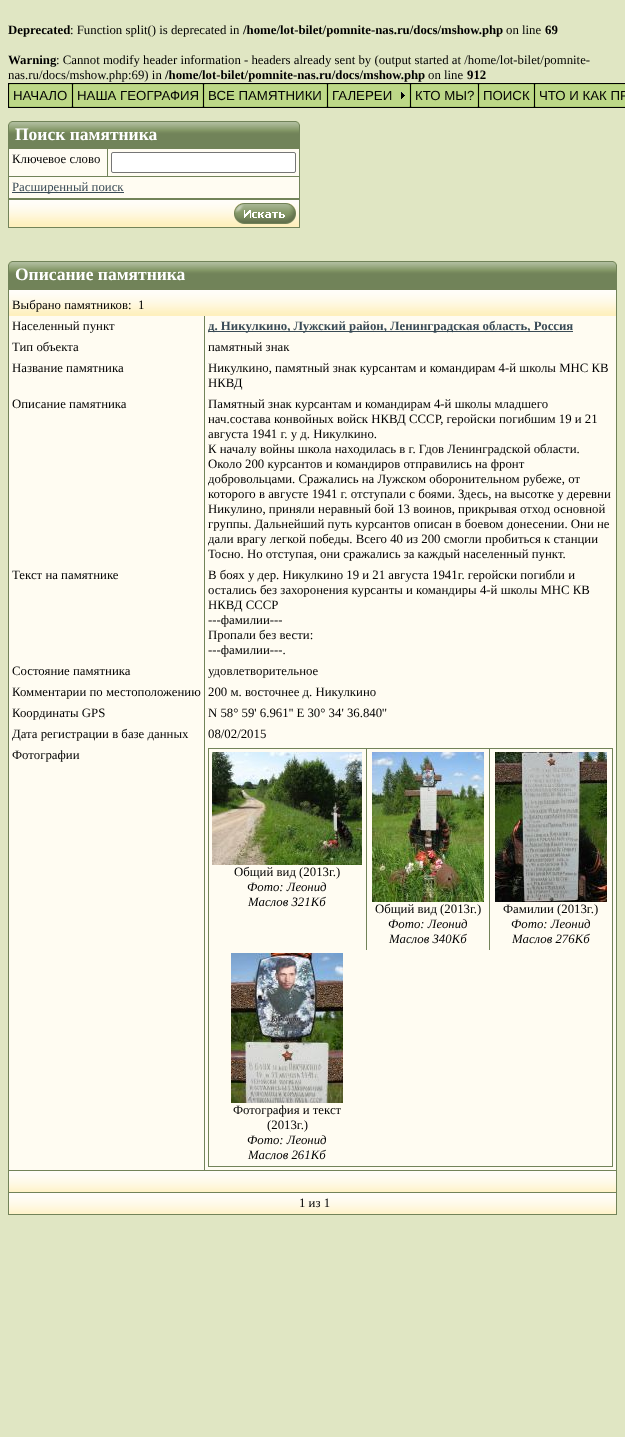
<!DOCTYPE html>
<meta charset="utf-8">
<style>body { margin: 0 } canvas { display: block }</style>
<canvas id="canvas" width="625" height="1437"></canvas>
<script type="module">
  const canvas = document.getElementById("canvas");
  const ctx = canvas.getContext("2d");
  ctx.miterLimit = 4;
  ctx.fontKerning = "normal";
  async function loadImage(src) {
    const img = new Image();
    img.src = src;
    await img.decode();
    return img;
  }

  ctx.fillStyle = "#e0e6c3";
  ctx.fillRect(0, 0, 625, 1437);
  ctx.font = "bold 12.8px Liberation Serif";
  ctx.fillStyle = "#000000";
  ctx.fillText("Deprecated", 8, 34);
  ctx.font = "12.8px Liberation Serif";
  ctx.fillText(": Function split() is deprecated in", 70, 34);
  ctx.font = "bold 12.8px Liberation Serif";
  ctx.fillText("/home/lot-bilet/pomnite-nas.ru/docs/mshow.php", 243, 34);
  ctx.font = "12.8px Liberation Serif";
  ctx.fillText("on line", 506, 34);
  ctx.font = "bold 12.8px Liberation Serif";
  ctx.fillText("69", 545, 34);
  ctx.fillText("Warning", 8, 64);
  ctx.font = "12.8px Liberation Serif";
  ctx.fillText(": Cannot modify header information - headers already sent by (output started at /home/lot-bilet/pomnite-", 56, 64);
  ctx.fillText("nas.ru/docs/mshow.php:69) in", 8, 79);
  ctx.font = "bold 12.8px Liberation Serif";
  ctx.fillText("/home/lot-bilet/pomnite-nas.ru/docs/mshow.php", 165, 79);
  ctx.font = "12.8px Liberation Serif";
  ctx.fillText("on line", 428, 79);
  ctx.font = "bold 12.8px Liberation Serif";
  ctx.fillText("912", 467, 79);
  ctx.fillRect(8, 83, 617, 25);
  ctx.fillStyle = "#bdd888";
  ctx.beginPath();
  ctx.rect(9.5, 84.5, 62, 22);
  ctx.fill();
  ctx.strokeStyle = "#aecc74";
  ctx.stroke();
  ctx.font = "13.25px Liberation Sans";
  ctx.fillStyle = "#000000";
  ctx.fillText("НАЧАЛО", 13, 100);
  ctx.fillStyle = "#bdd888";
  ctx.beginPath();
  ctx.rect(73.5, 84.5, 129, 22);
  ctx.fill();
  ctx.stroke();
  ctx.fillStyle = "#000000";
  ctx.fillText("НАША ГЕОГРАФИЯ", 77, 100);
  ctx.fillStyle = "#bdd888";
  ctx.beginPath();
  ctx.rect(204.5, 84.5, 122, 22);
  ctx.fill();
  ctx.stroke();
  ctx.fillStyle = "#000000";
  ctx.fillText("ВСЕ ПАМЯТНИКИ", 208, 100);
  ctx.fillStyle = "#bdd888";
  ctx.beginPath();
  ctx.rect(328.5, 84.5, 81, 22);
  ctx.fill();
  ctx.stroke();
  ctx.fillStyle = "#000000";
  ctx.fillText("ГАЛЕРЕИ", 332, 100);
  ctx.drawImage(await loadImage("img1.png"), 401, 92, 4, 7);
  ctx.fillStyle = "#bdd888";
  ctx.beginPath();
  ctx.rect(411.5, 84.5, 66, 22);
  ctx.fill();
  ctx.stroke();
  ctx.fillStyle = "#000000";
  ctx.fillText("КТО МЫ?", 415, 100);
  ctx.fillStyle = "#bdd888";
  ctx.beginPath();
  ctx.rect(479.5, 84.5, 54, 22);
  ctx.fill();
  ctx.stroke();
  ctx.fillStyle = "#000000";
  ctx.fillText("ПОИСК", 483, 100);
  ctx.fillStyle = "#bdd888";
  ctx.beginPath();
  ctx.rect(535.5, 84.5, 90, 22);
  ctx.fill();
  ctx.stroke();
  ctx.fillStyle = "#000000";
  ctx.fillText("ЧТО И КАК ПР", 539, 100);
  ctx.drawImage(await loadImage("img2.png"), 8, 121, 4, 27);
  ctx.drawImage(await loadImage("img3.png"), 12, 121, 279, 27);
  ctx.font = "bold 17.5px Liberation Serif";
  ctx.fillStyle = "#ffffff";
  ctx.fillText("Поиск памятника", 15, 140);
  ctx.drawImage(await loadImage("img4.png"), 291, 121, 9, 27);
  ctx.fillStyle = "#728359";
  ctx.fillRect(8, 148, 292, 1);
  ctx.fillRect(299, 148, 1, 80);
  ctx.fillRect(8, 227, 292, 1);
  ctx.fillStyle = "#fffcf2";
  ctx.fillRect(9, 149, 98, 27);
  ctx.fillStyle = "#728359";
  ctx.fillRect(8, 149, 1, 27);
  ctx.font = "12.8px Liberation Serif";
  ctx.fillStyle = "#000000";
  ctx.fillText("Ключевое слово", 12, 163);
  ctx.fillStyle = "#fffcf2";
  ctx.fillRect(108, 149, 191, 27);
  ctx.fillStyle = "#728359";
  ctx.fillRect(107, 149, 1, 27);
  ctx.fillStyle = "#ffffff";
  ctx.beginPath();
  ctx.roundRect(111.5, 152.5, 184, 20, 1.5);
  ctx.fill();
  ctx.strokeStyle = "#767676";
  ctx.stroke();
  ctx.fillStyle = "#fffcf2";
  ctx.fillRect(9, 177, 290, 21);
  ctx.fillStyle = "#728359";
  ctx.fillRect(8, 176, 291, 1);
  ctx.fillRect(8, 198, 291, 2);
  ctx.fillRect(8, 176, 1, 51);
  ctx.fillStyle = "#3a4b56";
  ctx.fillRect(12, 192, 112, 1);
  ctx.fillText("Расширенный поиск", 12, 191);
  ctx.drawImage(await loadImage("img5.png"), 9, 200, 290, 27);
  ctx.drawImage(await loadImage("img6.png"), 234, 203, 62, 21);
  ctx.drawImage(await loadImage("img2.png"), 8, 261, 4, 27);
  ctx.drawImage(await loadImage("img7.png"), 12, 261, 596, 27);
  ctx.font = "bold 17.5px Liberation Serif";
  ctx.fillStyle = "#ffffff";
  ctx.fillText("Описание памятника", 15, 280);
  ctx.drawImage(await loadImage("img4.png"), 608, 261, 9, 27);
  ctx.fillStyle = "#728359";
  ctx.fillRect(8, 288, 609, 1);
  ctx.fillRect(616, 288, 1, 927);
  ctx.fillRect(8, 1214, 609, 1);
  ctx.drawImage(await loadImage("img8.png"), 9, 290, 607, 26);
  ctx.fillRect(8, 289, 608, 1);
  ctx.fillRect(8, 289, 1, 881);
  ctx.font = "12.8px Liberation Serif";
  ctx.fillStyle = "#000000";
  ctx.fillText("Выбрано памятников:", 12, 309);
  ctx.fillText("1", 138, 309);
  ctx.fillStyle = "#fffcf2";
  ctx.fillRect(9, 316, 195, 854);
  ctx.fillStyle = "#000000";
  ctx.fillText("Населенный пункт", 12, 330);
  ctx.fillStyle = "#fffcf2";
  ctx.fillRect(205, 316, 411, 854);
  ctx.fillStyle = "#728359";
  ctx.fillRect(204, 316, 1, 854);
  ctx.fillStyle = "#3a4b56";
  ctx.fillRect(208, 331, 365, 1);
  ctx.font = "bold 12.8px Liberation Serif";
  ctx.fillText("д. Никулкино, Лужский район, Ленинградская область, Россия", 208, 330);
  ctx.font = "12.8px Liberation Serif";
  ctx.fillStyle = "#000000";
  ctx.fillText("Тип объекта", 12, 351);
  ctx.fillText("памятный знак", 208, 351);
  ctx.fillText("Название памятника", 12, 372);
  ctx.fillText("Никулкино, памятный знак курсантам и командирам 4-й школы МНС КВ", 208, 372);
  ctx.fillText("НКВД", 208, 387);
  ctx.fillText("Описание памятника", 12, 408);
  ctx.fillText("Памятный знак курсантам и командирам 4-й школы младшего", 208, 408);
  ctx.fillText("нач.состава конвойных войск НКВД СССР, геройски погибшим 19 и 21", 208, 423);
  ctx.fillText("августа 1941 г. у д. Никулкино.", 208, 438);
  ctx.fillText("К началу войны школа находилась в г. Гдов Ленинградской области.", 208, 453);
  ctx.fillText("Около 200 курсантов и командиров отправились на фронт", 208, 468);
  ctx.fillText("добровольцами. Сражались на Лужском оборонительном рубеже, от", 208, 483);
  ctx.fillText("которого в августе 1941 г. отступали с боями. Здесь, на высотке у деревни", 208, 498);
  ctx.fillText("Никулино, приняли неравный бой 13 воинов, прикрывая отход основной", 208, 513);
  ctx.fillText("группы. Дальнейший путь курсантов описан в боевом донесении. Они не", 208, 528);
  ctx.fillText("дали врагу легкой победы. Всего 40 из 200 смогли пробиться к станции", 208, 543);
  ctx.fillText("Тосно. Но отступая, они сражались за каждый населенный пункт.", 208, 558);
  ctx.fillText("Текст на памятнике", 12, 579);
  ctx.fillText("В боях у дер. Никулкино 19 и 21 августа 1941г. геройски погибли и", 208, 579);
  ctx.fillText("остались без захоронения курсанты и командиры 4-й школы МНС КВ", 208, 594);
  ctx.fillText("НКВД СССР", 208, 609);
  ctx.fillText("---фамилии---", 208, 624);
  ctx.fillText("Пропали без вести:", 208, 639);
  ctx.fillText("---фамилии---.", 208, 654);
  ctx.fillText("Состояние памятника", 12, 675);
  ctx.fillText("удовлетворительное", 208, 675);
  ctx.fillText("Комментарии по местоположению", 12, 696);
  ctx.fillText("200 м. восточнее д. Никулкино", 208, 696);
  ctx.fillText("Координаты GPS", 12, 717);
  ctx.fillText("N 58° 59' 6.961'' E 30° 34' 36.840''", 208, 717);
  ctx.fillText("Дата регистрации в базе данных", 12, 738);
  ctx.fillText("08/02/2015", 208, 738);
  ctx.fillText("Фотографии", 12, 759);
  ctx.fillStyle = "#728359";
  ctx.fillRect(208, 748, 405, 1);
  ctx.fillRect(612, 748, 1, 419);
  ctx.fillRect(208, 1166, 405, 1);
  ctx.fillRect(208, 749, 1, 417);
  ctx.drawImage(await loadImage("img9.png"), 212, 752, 150, 113);
  ctx.fillStyle = "#000000";
  ctx.fillText("Общий вид (2013г.)", 234, 876);
  ctx.font = "italic 12.8px Liberation Serif";
  ctx.fillText("Фото: Леонид", 247, 891);
  ctx.fillText("Маслов 321Кб", 248, 906);
  ctx.fillStyle = "#728359";
  ctx.fillRect(366, 749, 1, 201);
  ctx.drawImage(await loadImage("img10.png"), 372, 752, 112, 150);
  ctx.font = "12.8px Liberation Serif";
  ctx.fillStyle = "#000000";
  ctx.fillText("Общий вид (2013г.)", 375, 913);
  ctx.font = "italic 12.8px Liberation Serif";
  ctx.fillText("Фото: Леонид", 388, 928);
  ctx.fillText("Маслов 340Кб", 389, 943);
  ctx.fillStyle = "#728359";
  ctx.fillRect(489, 749, 1, 201);
  ctx.drawImage(await loadImage("img11.png"), 495, 752, 112, 150);
  ctx.font = "12.8px Liberation Serif";
  ctx.fillStyle = "#000000";
  ctx.fillText("Фамилии (2013г.)", 503, 913);
  ctx.font = "italic 12.8px Liberation Serif";
  ctx.fillText("Фото: Леонид", 511, 928);
  ctx.fillText("Маслов 276Кб", 512, 943);
  ctx.drawImage(await loadImage("img12.png"), 231, 953, 112, 150);
  ctx.font = "12.8px Liberation Serif";
  ctx.fillText("Фотография и текст", 233, 1114);
  ctx.fillText("(2013г.)", 267, 1129);
  ctx.font = "italic 12.8px Liberation Serif";
  ctx.fillText("Фото: Леонид", 247, 1144);
  ctx.fillText("Маслов 261Кб", 248, 1159);
  ctx.drawImage(await loadImage("img13.png"), 9, 1171, 607, 21);
  ctx.fillStyle = "#728359";
  ctx.fillRect(8, 1170, 608, 1);
  ctx.fillRect(8, 1170, 1, 22);
  ctx.drawImage(await loadImage("img13.png"), 9, 1193, 607, 21);
  ctx.fillRect(8, 1192, 608, 1);
  ctx.fillRect(8, 1192, 1, 22);
  ctx.font = "12.8px Liberation Serif";
  ctx.fillStyle = "#000000";
  ctx.fillText("1 из 1", 299, 1207);
</script>
